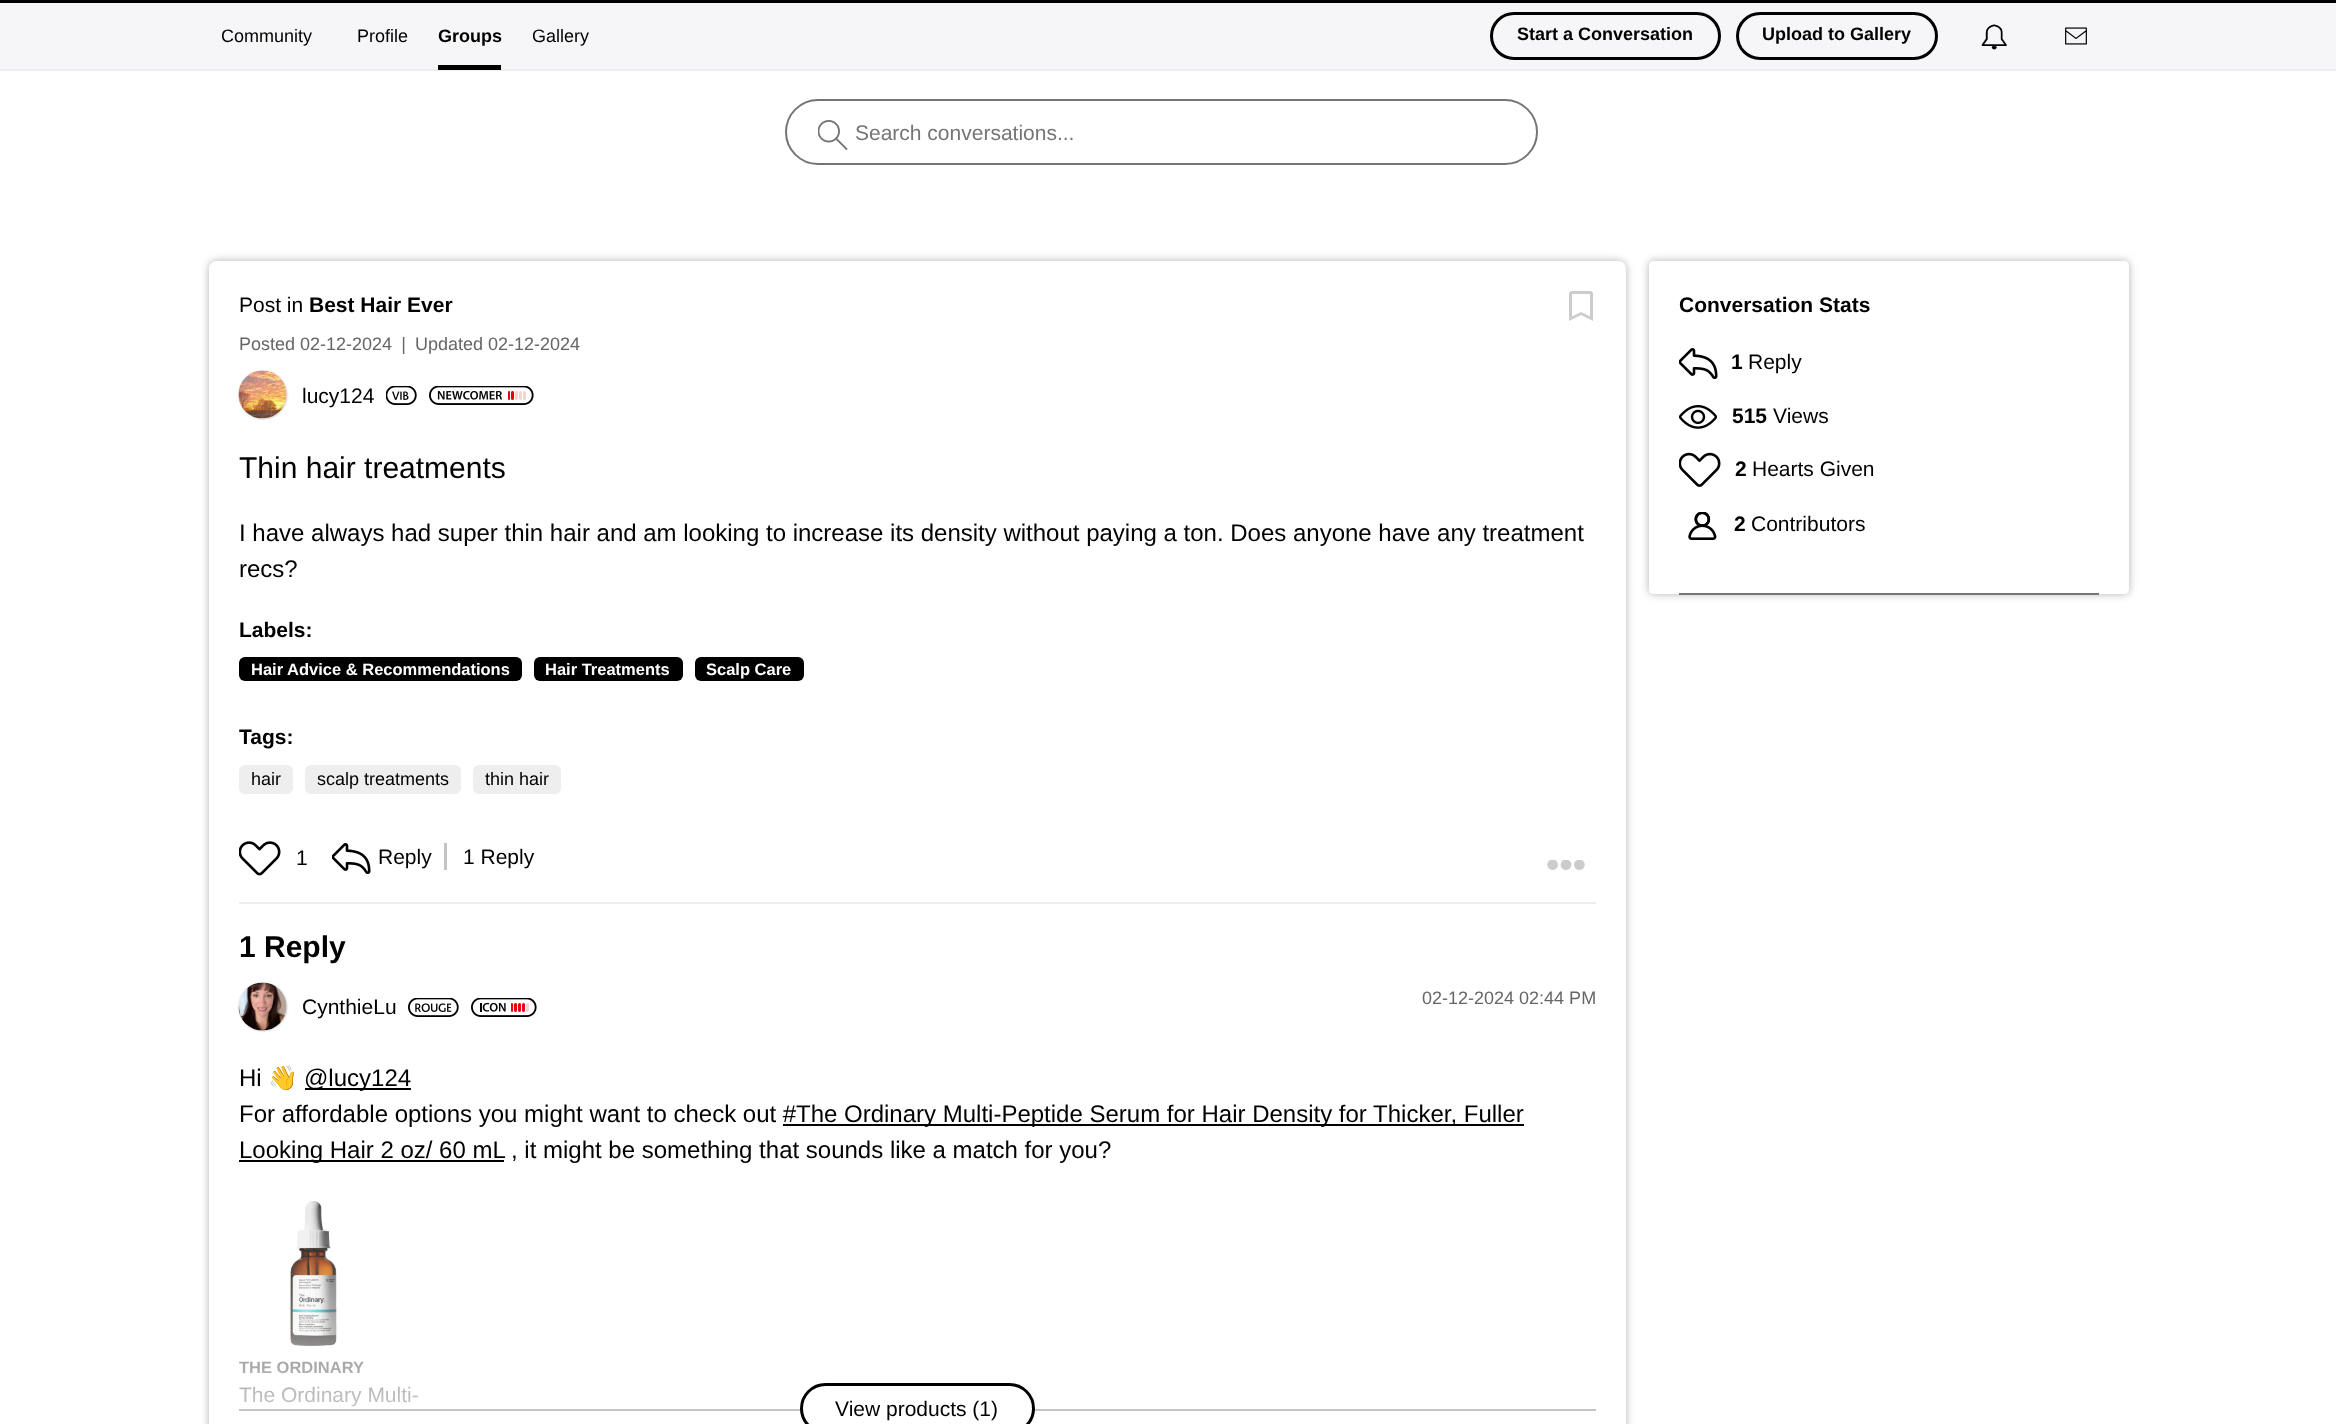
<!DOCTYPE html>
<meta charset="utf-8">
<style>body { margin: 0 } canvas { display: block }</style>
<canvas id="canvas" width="2336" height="1424"></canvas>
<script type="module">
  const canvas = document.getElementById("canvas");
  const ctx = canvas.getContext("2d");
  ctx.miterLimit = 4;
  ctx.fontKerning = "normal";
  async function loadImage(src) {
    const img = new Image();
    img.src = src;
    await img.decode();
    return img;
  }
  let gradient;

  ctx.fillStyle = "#ffffff";
  ctx.fillRect(0, 0, 2336, 1424);
  ctx.fillStyle = "#000000";
  ctx.fillRect(0, 0, 2336, 3);
  ctx.fillStyle = "#eeeeee";
  ctx.fillRect(0, 69, 2336, 2);
  ctx.fillStyle = "#f6f6f8";
  ctx.fillRect(0, 3, 2336, 66);
  ctx.font = "18px Liberation Sans";
  ctx.fillStyle = "#000000";
  ctx.fillText("Community", 221, 42);
  ctx.fillText("Profile", 357, 42);
  ctx.fillRect(438, 65, 63, 5);
  ctx.font = "bold 18px Liberation Sans";
  ctx.fillText("Groups", 438, 42);
  ctx.font = "18px Liberation Sans";
  ctx.fillText("Gallery", 532, 42);
  ctx.beginPath();
  ctx.roundRect(1491.5, 13.5, 228, 45, 22.5);
  ctx.strokeStyle = "#000000";
  ctx.lineWidth = 3;
  ctx.stroke();
  ctx.font = "bold 18px Liberation Sans";
  ctx.fillText("Start a Conversation", 1517, 40);
  ctx.beginPath();
  ctx.roundRect(1737.5, 13.5, 199, 45, 22.5);
  ctx.stroke();
  ctx.fillText("Upload to Gallery", 1762, 40);
  ctx.drawImage(await loadImage("img1.png"), 1981, 24, 26, 26);
  ctx.drawImage(await loadImage("img2.png"), 2065, 27, 22, 18);
  ctx.beginPath();
  ctx.roundRect(786, 100, 751, 64, 32);
  ctx.strokeStyle = "#757575";
  ctx.lineWidth = 2;
  ctx.stroke();
  ctx.drawImage(await loadImage("img3.png"), 818, 120, 30, 30);
  ctx.font = "21px Liberation Sans";
  ctx.fillStyle = "#757575";
  ctx.fillText("Search conversations...", 855, 140);
  ctx.save();
  ctx.beginPath();
  ctx.moveTo(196, 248);
  ctx.lineTo(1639, 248);
  ctx.lineTo(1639, 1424);
  ctx.lineTo(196, 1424);
  ctx.closePath();
  ctx.moveTo(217, 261);
  ctx.lineTo(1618, 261);
  ctx.bezierCurveTo(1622.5, 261, 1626, 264.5, 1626, 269);
  ctx.lineTo(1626, 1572);
  ctx.bezierCurveTo(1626, 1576.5, 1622.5, 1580, 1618, 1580);
  ctx.lineTo(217, 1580);
  ctx.bezierCurveTo(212.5, 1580, 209, 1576.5, 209, 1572);
  ctx.lineTo(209, 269);
  ctx.bezierCurveTo(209, 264.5, 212.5, 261, 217, 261);
  ctx.closePath();
  ctx.clip("evenodd");
  ctx.fillStyle = "#b1b1b1";
  ctx.filter = "blur(4px)";
  ctx.beginPath();
  ctx.roundRect(209, 261, 1417, 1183, 8);
  ctx.fill();
  ctx.filter = "none";
  ctx.restore();
  ctx.fillStyle = "#000000";
  ctx.fillText("Post in", 239, 312);
  ctx.font = "bold 21px Liberation Sans";
  ctx.fillText("Best Hair Ever", 309, 312);
  ctx.drawImage(await loadImage("img4.png"), 1569, 291, 24, 30);
  ctx.font = "18px Liberation Sans";
  ctx.fillStyle = "#666666";
  ctx.fillText("Posted 02-12-2024", 239, 350);
  ctx.font = "italic 18px Liberation Sans";
  ctx.fillText("|", 401, 350);
  ctx.font = "18px Liberation Sans";
  ctx.fillText("Updated 02-12-2024", 415, 350);
  ctx.fillStyle = "#eeeeee";
  ctx.fillRect(239, 902, 1357, 2);
  ctx.fillStyle = "#c4c4c4";
  ctx.filter = "blur(1px)";
  ctx.beginPath();
  ctx.roundRect(239, 371, 48, 48, 24);
  ctx.fill();
  ctx.filter = "none";
  ctx.drawImage(await loadImage("img5.png"), 238, 370, 49, 49);
  ctx.font = "21px Liberation Sans";
  ctx.fillStyle = "#000000";
  ctx.fillText("lucy124", 302, 403);
  ctx.drawImage(await loadImage("img6.png"), 386, 386, 31, 19);
  ctx.drawImage(await loadImage("img7.png"), 429, 386, 105, 19);
  ctx.font = "30px Liberation Sans";
  ctx.fillText("Thin hair treatments", 239, 478);
  ctx.font = "24px Liberation Sans";
  ctx.fillText("I have always had super thin hair and am looking to increase its density without paying a ton. Does anyone have any treatment", 239, 541);
  ctx.fillText("recs?", 239, 577);
  ctx.font = "bold 21px Liberation Sans";
  ctx.fillText("Labels:", 239, 637);
  ctx.beginPath();
  ctx.roundRect(239, 657, 283, 24, 6);
  ctx.fill();
  ctx.font = "bold 16.5px Liberation Sans";
  ctx.fillStyle = "#ffffff";
  ctx.fillText("Hair Advice & Recommendations", 251, 675);
  ctx.fillStyle = "#000000";
  ctx.beginPath();
  ctx.roundRect(534, 657, 149, 24, 6);
  ctx.fill();
  ctx.fillStyle = "#ffffff";
  ctx.fillText("Hair Treatments", 545, 675);
  ctx.fillStyle = "#000000";
  ctx.beginPath();
  ctx.roundRect(695, 657, 109, 24, 6);
  ctx.fill();
  ctx.fillStyle = "#ffffff";
  ctx.fillText("Scalp Care", 706, 675);
  ctx.font = "bold 21px Liberation Sans";
  ctx.fillStyle = "#000000";
  ctx.fillText("Tags:", 239, 744);
  ctx.fillStyle = "#eeeeee";
  ctx.beginPath();
  ctx.roundRect(239, 765, 54, 29, 6);
  ctx.fill();
  ctx.font = "18px Liberation Sans";
  ctx.fillStyle = "#000000";
  ctx.fillText("hair", 251, 785);
  ctx.fillStyle = "#eeeeee";
  ctx.beginPath();
  ctx.roundRect(305, 765, 156, 29, 6);
  ctx.fill();
  ctx.fillStyle = "#000000";
  ctx.fillText("scalp treatments", 317, 785);
  ctx.fillStyle = "#eeeeee";
  ctx.beginPath();
  ctx.roundRect(473, 765, 88, 29, 6);
  ctx.fill();
  ctx.fillStyle = "#000000";
  ctx.fillText("thin hair", 485, 785);
  ctx.drawImage(await loadImage("img8.png"), 239, 841, 42, 35);
  ctx.font = "21px Liberation Sans";
  ctx.fillText("1", 296, 865);
  ctx.drawImage(await loadImage("img9.png"), 332, 843, 39, 32);
  ctx.fillText("Reply", 378, 864);
  ctx.fillStyle = "#c4c4c4";
  ctx.fillRect(444, 843, 3, 27);
  ctx.fillStyle = "#000000";
  ctx.fillText("1 Reply", 463, 864);
  ctx.drawImage(await loadImage("img10.png"), 1547, 860, 38, 10);
  ctx.font = "bold 30px Liberation Sans";
  ctx.fillText("1 Reply", 239, 957);
  ctx.fillStyle = "#c4c4c4";
  ctx.filter = "blur(1px)";
  ctx.beginPath();
  ctx.roundRect(239, 983, 48, 48, 24);
  ctx.fill();
  ctx.filter = "none";
  ctx.drawImage(await loadImage("img11.png"), 238, 982, 49, 49);
  ctx.font = "21px Liberation Sans";
  ctx.fillStyle = "#000000";
  ctx.fillText("CynthieLu", 302, 1014);
  ctx.drawImage(await loadImage("img12.png"), 408, 998, 51, 19);
  ctx.drawImage(await loadImage("img13.png"), 471, 998, 66, 19);
  ctx.font = "18px Liberation Sans";
  ctx.fillStyle = "#666666";
  ctx.fillText("02-12-2024 02:44 PM", 1422, 1004);
  ctx.font = "24px Liberation Sans";
  ctx.fillStyle = "#000000";
  ctx.fillText("Hi", 239, 1086);
  ctx.font = "24px Noto Color Emoji";
  ctx.fillText("👋", 268, 1086);
  ctx.fillRect(305, 1088, 106, 2);
  ctx.font = "24px Liberation Sans";
  ctx.fillText("@lucy124", 304, 1086);
  ctx.fillText("For affordable options you might want to check out #", 239, 1122);
  ctx.fillRect(783, 1124, 741, 2);
  ctx.fillText("The Ordinary Multi-Peptide Serum for Hair Density for Thicker, Fuller", 796, 1122);
  ctx.fillRect(239, 1160, 265, 2);
  ctx.fillText("Looking Hair 2 oz/ 60 mL", 239, 1158);
  ctx.fillText(", it might be something that sounds like a match for you?", 511, 1158);
  ctx.drawImage(await loadImage("img14.png"), 290, 1201, 47, 146);
  ctx.font = "bold 16.5px Liberation Sans";
  ctx.fillStyle = "#3e3e3e";
  ctx.fillText("THE ORDINARY", 239, 1373);
  ctx.font = "21px Liberation Sans";
  ctx.fillText("The Ordinary Multi-", 239, 1402);
  gradient = ctx.createLinearGradient(917, 1199, 917, 1409);
  gradient.addColorStop(0, "rgba(255, 255, 255, 0)");
  gradient.addColorStop(1, "rgba(255, 255, 255, 0.7)");
  ctx.fillStyle = gradient;
  ctx.fillRect(239, 1205, 179, 202);
  ctx.fillStyle = "#c4c4c4";
  ctx.fillRect(239, 1409, 1357, 2);
  ctx.fillStyle = "#ffffff";
  ctx.beginPath();
  ctx.roundRect(801.5, 1384.5, 232, 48, 24);
  ctx.fill();
  ctx.strokeStyle = "#000000";
  ctx.lineWidth = 3;
  ctx.stroke();
  ctx.fillStyle = "#000000";
  ctx.fillText("View products (1)", 835, 1416);
  ctx.save();
  ctx.beginPath();
  ctx.moveTo(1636, 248);
  ctx.lineTo(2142, 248);
  ctx.lineTo(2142, 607);
  ctx.lineTo(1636, 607);
  ctx.closePath();
  ctx.moveTo(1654, 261);
  ctx.lineTo(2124, 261);
  ctx.bezierCurveTo(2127, 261, 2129, 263, 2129, 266);
  ctx.lineTo(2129, 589);
  ctx.bezierCurveTo(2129, 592, 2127, 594, 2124, 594);
  ctx.lineTo(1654, 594);
  ctx.bezierCurveTo(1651, 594, 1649, 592, 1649, 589);
  ctx.lineTo(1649, 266);
  ctx.bezierCurveTo(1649, 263, 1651, 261, 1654, 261);
  ctx.closePath();
  ctx.clip("evenodd");
  ctx.fillStyle = "#b1b1b1";
  ctx.filter = "blur(4px)";
  ctx.beginPath();
  ctx.roundRect(1649, 261, 480, 333, 5);
  ctx.fill();
  ctx.filter = "none";
  ctx.restore();
  ctx.fillStyle = "#757575";
  ctx.fillRect(1679, 593, 420, 2);
  ctx.font = "bold 21px Liberation Sans";
  ctx.fillStyle = "#000000";
  ctx.fillText("Conversation Stats", 1679, 312);
  ctx.drawImage(await loadImage("img9.png"), 1679, 348, 39, 32);
  ctx.fillText("1", 1731, 369);
  ctx.font = "21px Liberation Sans";
  ctx.fillText("Reply", 1748, 369);
  ctx.drawImage(await loadImage("img15.png"), 1679, 405, 38, 24);
  ctx.font = "bold 21px Liberation Sans";
  ctx.fillText("515", 1732, 423);
  ctx.font = "21px Liberation Sans";
  ctx.fillText("Views", 1773, 423);
  ctx.drawImage(await loadImage("img16.png"), 1679, 452, 42, 35);
  ctx.font = "bold 21px Liberation Sans";
  ctx.fillText("2", 1735, 476);
  ctx.font = "21px Liberation Sans";
  ctx.fillText("Hearts Given", 1752, 476);
  ctx.drawImage(await loadImage("img17.png"), 1688, 512, 29, 28);
  ctx.font = "bold 21px Liberation Sans";
  ctx.fillText("2", 1734, 531);
  ctx.font = "21px Liberation Sans";
  ctx.fillText("Contributors", 1751, 531);
</script>
